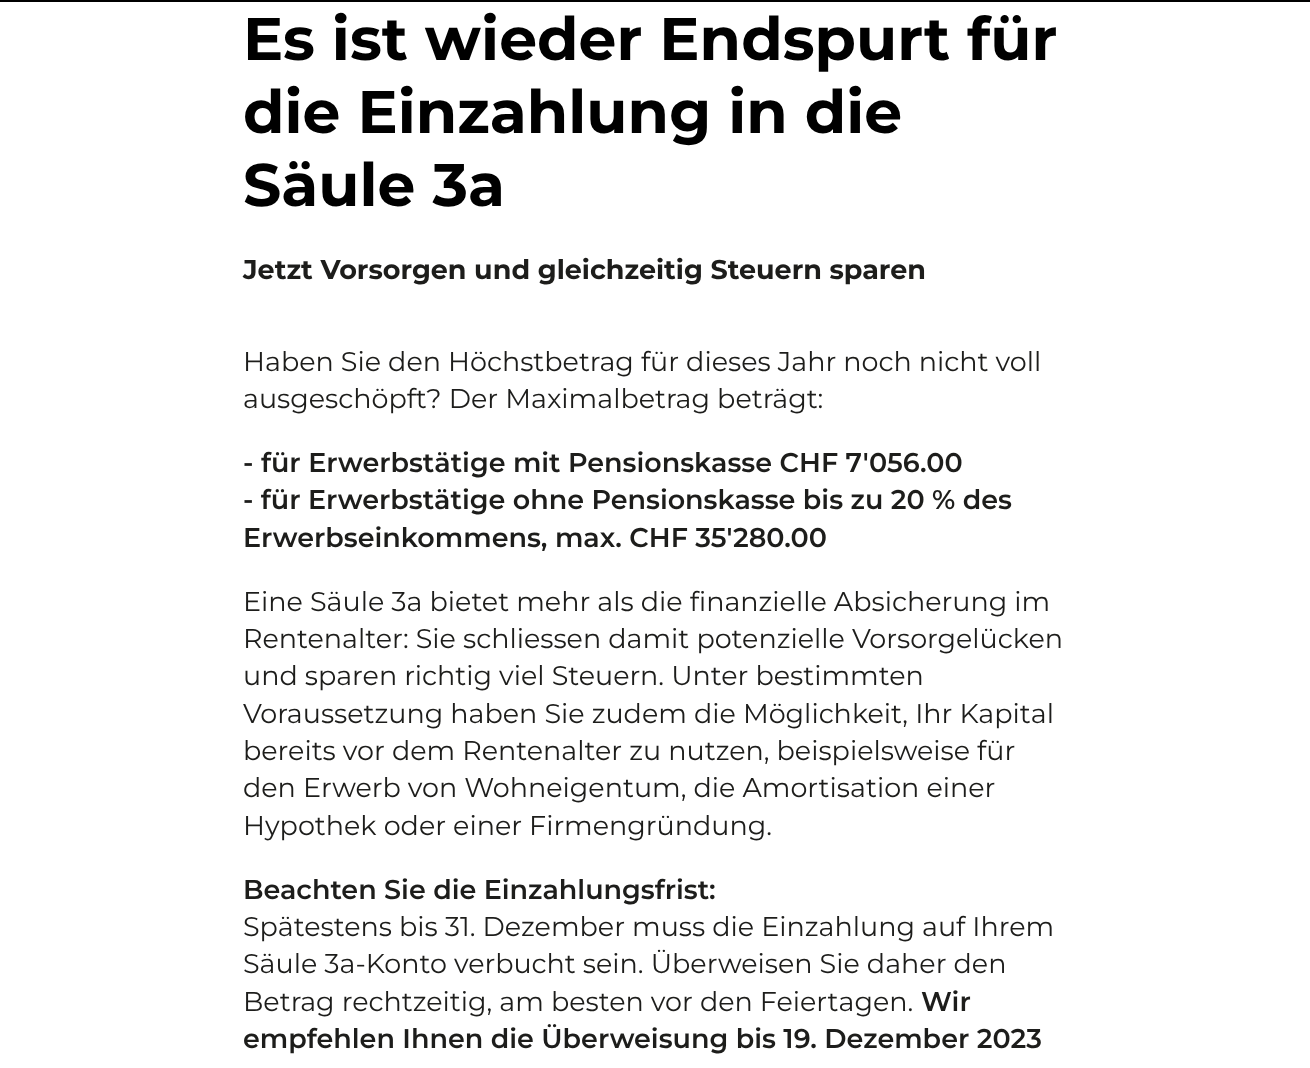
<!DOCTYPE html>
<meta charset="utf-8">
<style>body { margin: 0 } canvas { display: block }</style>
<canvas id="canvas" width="1310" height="1068"></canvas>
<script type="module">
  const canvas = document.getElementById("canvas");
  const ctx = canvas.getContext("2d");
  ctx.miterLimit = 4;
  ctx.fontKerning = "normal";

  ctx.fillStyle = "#ffffff";
  ctx.fillRect(0, 0, 1310, 1068);
  ctx.fillStyle = "#000000";
  ctx.fillRect(0, 0, 1310, 2);
  ctx.font = "bold 60px Montserrat";
  ctx.fillText("Es ist wieder Endspurt für", 243, 60);
  ctx.fillText("die Einzahlung in die", 243, 133);
  ctx.fillText("Säule 3a", 243, 206);
  ctx.font = "bold 27px Montserrat";
  ctx.fillStyle = "#1d1d1b";
  ctx.fillText("Jetzt Vorsorgen und gleichzeitig Steuern sparen", 243, 279);
  ctx.font = "27px Montserrat";
  ctx.fillText("Haben Sie den Höchstbetrag für dieses Jahr noch nicht voll", 243, 371);
  ctx.fillText("ausgeschöpft? Der Maximalbetrag beträgt:", 243, 408);
  ctx.font = "600 27px Montserrat";
  ctx.fillText("-", 243, 472);
  ctx.fillText("für Erwerbstätige mit Pensionskasse CHF 7'056.00", 261, 472);
  ctx.fillText("- für Erwerbstätige ohne Pensionskasse bis zu 20 % des", 243, 509);
  ctx.fillText("Erwerbseinkommens, max. CHF 35'280.00", 243, 547);
  ctx.font = "27px Montserrat";
  ctx.fillText("Eine Säule 3a bietet mehr als die finanzielle Absicherung im", 243, 611);
  ctx.fillText("Rentenalter: Sie schliessen damit potenzielle Vorsorgelücken", 243, 648);
  ctx.fillText("und sparen richtig viel Steuern. Unter bestimmten", 243, 685);
  ctx.fillText("Voraussetzung haben Sie zudem die Möglichkeit, Ihr Kapital", 243, 723);
  ctx.fillText("bereits vor dem Rentenalter zu nutzen, beispielsweise für", 243, 760);
  ctx.fillText("den Erwerb von Wohneigentum, die Amortisation einer", 243, 797);
  ctx.fillText("Hypothek oder einer Firmengründung.", 243, 835);
  ctx.font = "600 27px Montserrat";
  ctx.fillText("Beachten Sie die Einzahlungsfrist:", 243, 899);
  ctx.font = "27px Montserrat";
  ctx.fillText("Spätestens bis 31. Dezember muss die Einzahlung auf Ihrem", 243, 936);
  ctx.fillText("Säule 3a-Konto verbucht sein. Überweisen Sie daher den", 243, 973);
  ctx.fillText("Betrag rechtzeitig, am besten vor den Feiertagen.", 243, 1011);
  ctx.font = "600 27px Montserrat";
  ctx.fillText("Wir", 921, 1011);
  ctx.fillText("empfehlen Ihnen die Überweisung bis 19. Dezember 2023", 243, 1048);
</script>
